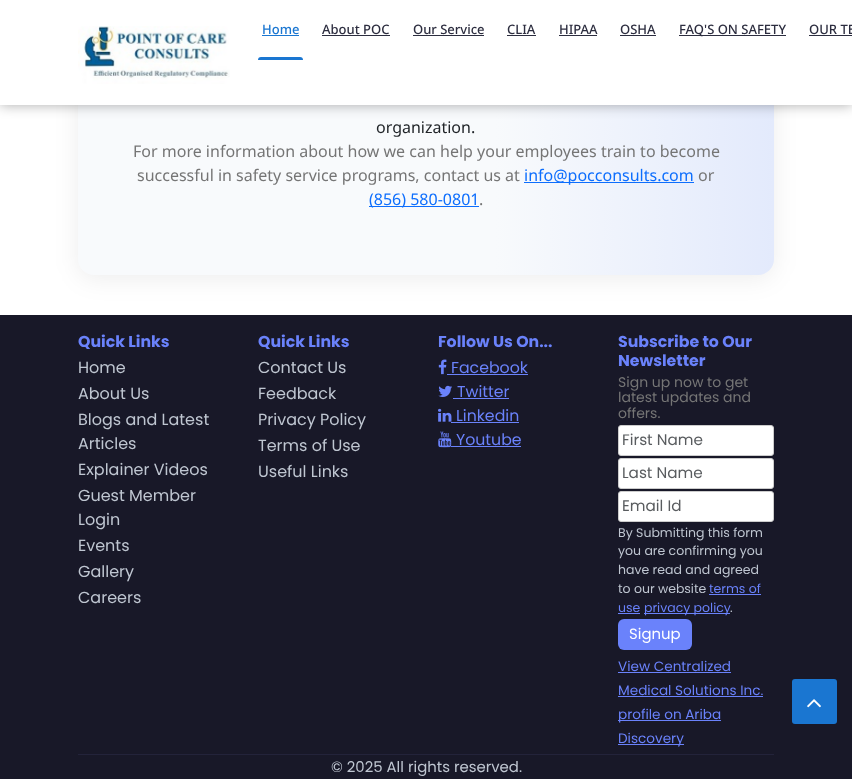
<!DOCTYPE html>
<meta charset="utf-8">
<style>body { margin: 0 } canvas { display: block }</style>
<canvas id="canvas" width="852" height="779"></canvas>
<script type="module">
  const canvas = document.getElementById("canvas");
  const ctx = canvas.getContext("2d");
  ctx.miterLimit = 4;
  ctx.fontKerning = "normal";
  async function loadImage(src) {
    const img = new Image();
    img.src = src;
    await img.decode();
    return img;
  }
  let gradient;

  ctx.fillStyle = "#ffffff";
  ctx.fillRect(0, 0, 852, 779);
  ctx.fillStyle = "rgba(0, 0, 0, 0.07)";
  ctx.filter = "blur(12px)";
  ctx.beginPath();
  ctx.roundRect(78, -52, 696, 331, 16);
  ctx.fill();
  ctx.filter = "none";
  gradient = ctx.createLinearGradient(78, -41, 774, -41);
  gradient.addColorStop(0.6, "#f8fafc");
  gradient.addColorStop(1, "#e3eafc");
  ctx.fillStyle = gradient;
  ctx.beginPath();
  ctx.roundRect(78, -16, 696, 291, 16);
  ctx.fill();
  ctx.fillStyle = "rgba(0, 0, 0, 0.33)";
  ctx.filter = "blur(6.5px)";
  ctx.beginPath();
  ctx.rect(0, 0, 852, 105);
  ctx.fill();
  ctx.filter = "none";
  ctx.fillStyle = "#ffffff";
  ctx.fillRect(0, 0, 852, 105);
  ctx.drawImage(await loadImage("img1.png"), 78, 26, 152, 58);
  ctx.font = "500 13px Noto Sans";
  ctx.fillStyle = "#1a76d1";
  ctx.fillText("Home", 262, 34);
  ctx.fillRect(262, 35, 37, 1);
  ctx.beginPath();
  ctx.roundRect(258, 57, 45, 3, [3, 3, 0, 0]);
  ctx.fill();
  ctx.fillStyle = "#2c2d3f";
  ctx.fillText("About POC", 322, 34);
  ctx.fillRect(322, 35, 68, 1);
  ctx.fillText("Our Service", 413, 34);
  ctx.fillRect(413, 35, 71, 1);
  ctx.fillText("CLIA", 507, 34);
  ctx.fillRect(507, 35, 29, 1);
  ctx.fillText("HIPAA", 559, 34);
  ctx.fillRect(559, 35, 38, 1);
  ctx.fillText("OSHA", 620, 34);
  ctx.fillRect(620, 35, 36, 1);
  ctx.fillRect(679, 35, 107, 1);
  ctx.fillText("FAQ'S ON SAFETY", 679, 34);
  ctx.fillText("OUR TE", 809, 34);
  ctx.fillRect(809, 35, 43, 1);
  ctx.font = "16px Noto Sans";
  ctx.fillStyle = "#212529";
  ctx.fillText("organization.", 376, 133);
  ctx.fillStyle = "#757575";
  ctx.fillText("For more information about how we can help your employees train to become", 133, 157);
  ctx.fillText("successful in safety service programs, contact us at", 137, 181);
  ctx.fillStyle = "#0d6efd";
  ctx.fillRect(524, 182, 170, 1);
  ctx.fillText("info@pocconsults.com", 524, 181);
  ctx.fillStyle = "#757575";
  ctx.fillText("or", 698, 181);
  ctx.fillStyle = "#0d6efd";
  ctx.fillRect(369, 206, 110, 1);
  ctx.fillText("(856) 580-0801", 369, 205);
  ctx.fillStyle = "#757575";
  ctx.fillText(".", 479, 205);
  ctx.fillStyle = "#181828";
  ctx.fillRect(0, 315, 852, 464);
  ctx.font = "bold 15.75px Poppins";
  ctx.fillStyle = "#6a82fb";
  ctx.fillText("Quick Links", 78, 347);
  ctx.font = "16px Poppins";
  ctx.fillStyle = "#bfc6d1";
  ctx.fillText("Home", 78, 373);
  ctx.fillText("About Us", 78, 399);
  ctx.fillText("Blogs and Latest", 78, 425);
  ctx.fillText("Articles", 78, 449);
  ctx.fillText("Explainer Videos", 78, 475);
  ctx.fillText("Guest Member", 78, 501);
  ctx.fillText("Login", 78, 525);
  ctx.fillText("Events", 78, 551);
  ctx.fillText("Gallery", 78, 577);
  ctx.fillText("Careers", 78, 603);
  ctx.font = "bold 15.75px Poppins";
  ctx.fillStyle = "#6a82fb";
  ctx.fillText("Quick Links", 258, 347);
  ctx.font = "16px Poppins";
  ctx.fillStyle = "#bfc6d1";
  ctx.fillText("Contact Us", 258, 373);
  ctx.fillText("Feedback", 258, 399);
  ctx.fillText("Privacy Policy", 258, 425);
  ctx.fillText("Terms of Use", 258, 451);
  ctx.fillText("Useful Links", 258, 477);
  ctx.font = "bold 15.75px Poppins";
  ctx.fillStyle = "#6a82fb";
  ctx.fillText("Follow Us On...", 438, 347);
  ctx.drawImage(await loadImage("img2.png"), 438, 359, 9, 16);
  ctx.font = "15.75px Poppins";
  ctx.fillText("Facebook", 451, 373);
  ctx.fillRect(447, 374, 81, 1);
  ctx.drawImage(await loadImage("img3.png"), 438, 385, 14, 12);
  ctx.fillText("Twitter", 457, 397);
  ctx.fillRect(453, 398, 56, 1);
  ctx.drawImage(await loadImage("img4.png"), 438, 408, 14, 14);
  ctx.fillText("Linkedin", 456, 421);
  ctx.fillRect(451, 422, 68, 1);
  ctx.drawImage(await loadImage("img5.png"), 438, 431, 14, 17);
  ctx.fillText("Youtube", 456, 445);
  ctx.fillRect(451, 446, 70, 1);
  ctx.font = "bold 15.75px Poppins";
  ctx.fillText("Subscribe to Our", 618, 347);
  ctx.fillText("Newsletter", 618, 366);
  ctx.font = "14px Poppins";
  ctx.fillStyle = "#757575";
  ctx.fillText("Sign up now to get", 618, 387);
  ctx.fillText("latest updates and", 618, 402);
  ctx.fillText("offers.", 618, 418);
  ctx.fillStyle = "#ffffff";
  ctx.beginPath();
  ctx.roundRect(618.5, 425.5, 155, 30, 2.5);
  ctx.fill();
  ctx.strokeStyle = "#cccccc";
  ctx.stroke();
  ctx.font = "15.25px Poppins";
  ctx.fillStyle = "#595c5f";
  ctx.fillText("First Name", 622, 445);
  ctx.fillStyle = "#ffffff";
  ctx.beginPath();
  ctx.roundRect(618.5, 458.5, 155, 30, 2.5);
  ctx.fill();
  ctx.stroke();
  ctx.fillStyle = "#595c5f";
  ctx.fillText("Last Name", 622, 478);
  ctx.fillStyle = "#ffffff";
  ctx.beginPath();
  ctx.roundRect(618.5, 491.5, 155, 30, 2.5);
  ctx.fill();
  ctx.stroke();
  ctx.fillStyle = "#595c5f";
  ctx.fillText("Email Id", 622, 511);
  ctx.font = "12.5px Poppins";
  ctx.fillStyle = "#bfc6d1";
  ctx.fillText("By Submitting this form", 618, 537);
  ctx.fillText("you are confirming you", 618, 555);
  ctx.fillText("have read and agreed", 618, 574);
  ctx.fillText("to our website", 618, 593);
  ctx.fillStyle = "#6a82fb";
  ctx.fillText("terms of", 709, 593);
  ctx.fillRect(709, 594, 52, 1);
  ctx.fillText("use", 618, 612);
  ctx.fillRect(618, 613, 22, 1);
  ctx.fillRect(644, 613, 86, 1);
  ctx.fillText("privacy policy", 644, 612);
  ctx.fillStyle = "#bfc6d1";
  ctx.fillText(".", 730, 612);
  ctx.fillStyle = "#6a82fb";
  ctx.beginPath();
  ctx.roundRect(618, 619, 74, 31, 6);
  ctx.fill();
  ctx.font = "14.9px Poppins";
  ctx.fillStyle = "#ffffff";
  ctx.fillText("Signup", 629, 639);
  ctx.font = "13.6px Poppins";
  ctx.fillStyle = "#6a82fb";
  ctx.fillText("View Centralized", 618, 671);
  ctx.fillRect(618, 672, 113, 1);
  ctx.fillText("Medical Solutions Inc.", 618, 695);
  ctx.fillRect(618, 696, 145, 1);
  ctx.fillRect(618, 720, 103, 1);
  ctx.fillText("profile on Ariba", 618, 719);
  ctx.fillRect(618, 744, 66, 1);
  ctx.fillText("Discovery", 618, 743);
  ctx.fillStyle = "#23233a";
  ctx.fillRect(78, 754, 696, 1);
  ctx.font = "14.9px Poppins";
  ctx.fillStyle = "#bfc6d1";
  ctx.fillText("© 2025 All rights reserved.", 331, 772);
  ctx.fillStyle = "#1a76d1";
  ctx.beginPath();
  ctx.roundRect(792, 679, 45, 45, 3);
  ctx.fill();
  ctx.drawImage(await loadImage("img6.png"), 807, 699, 14, 9);
</script>
